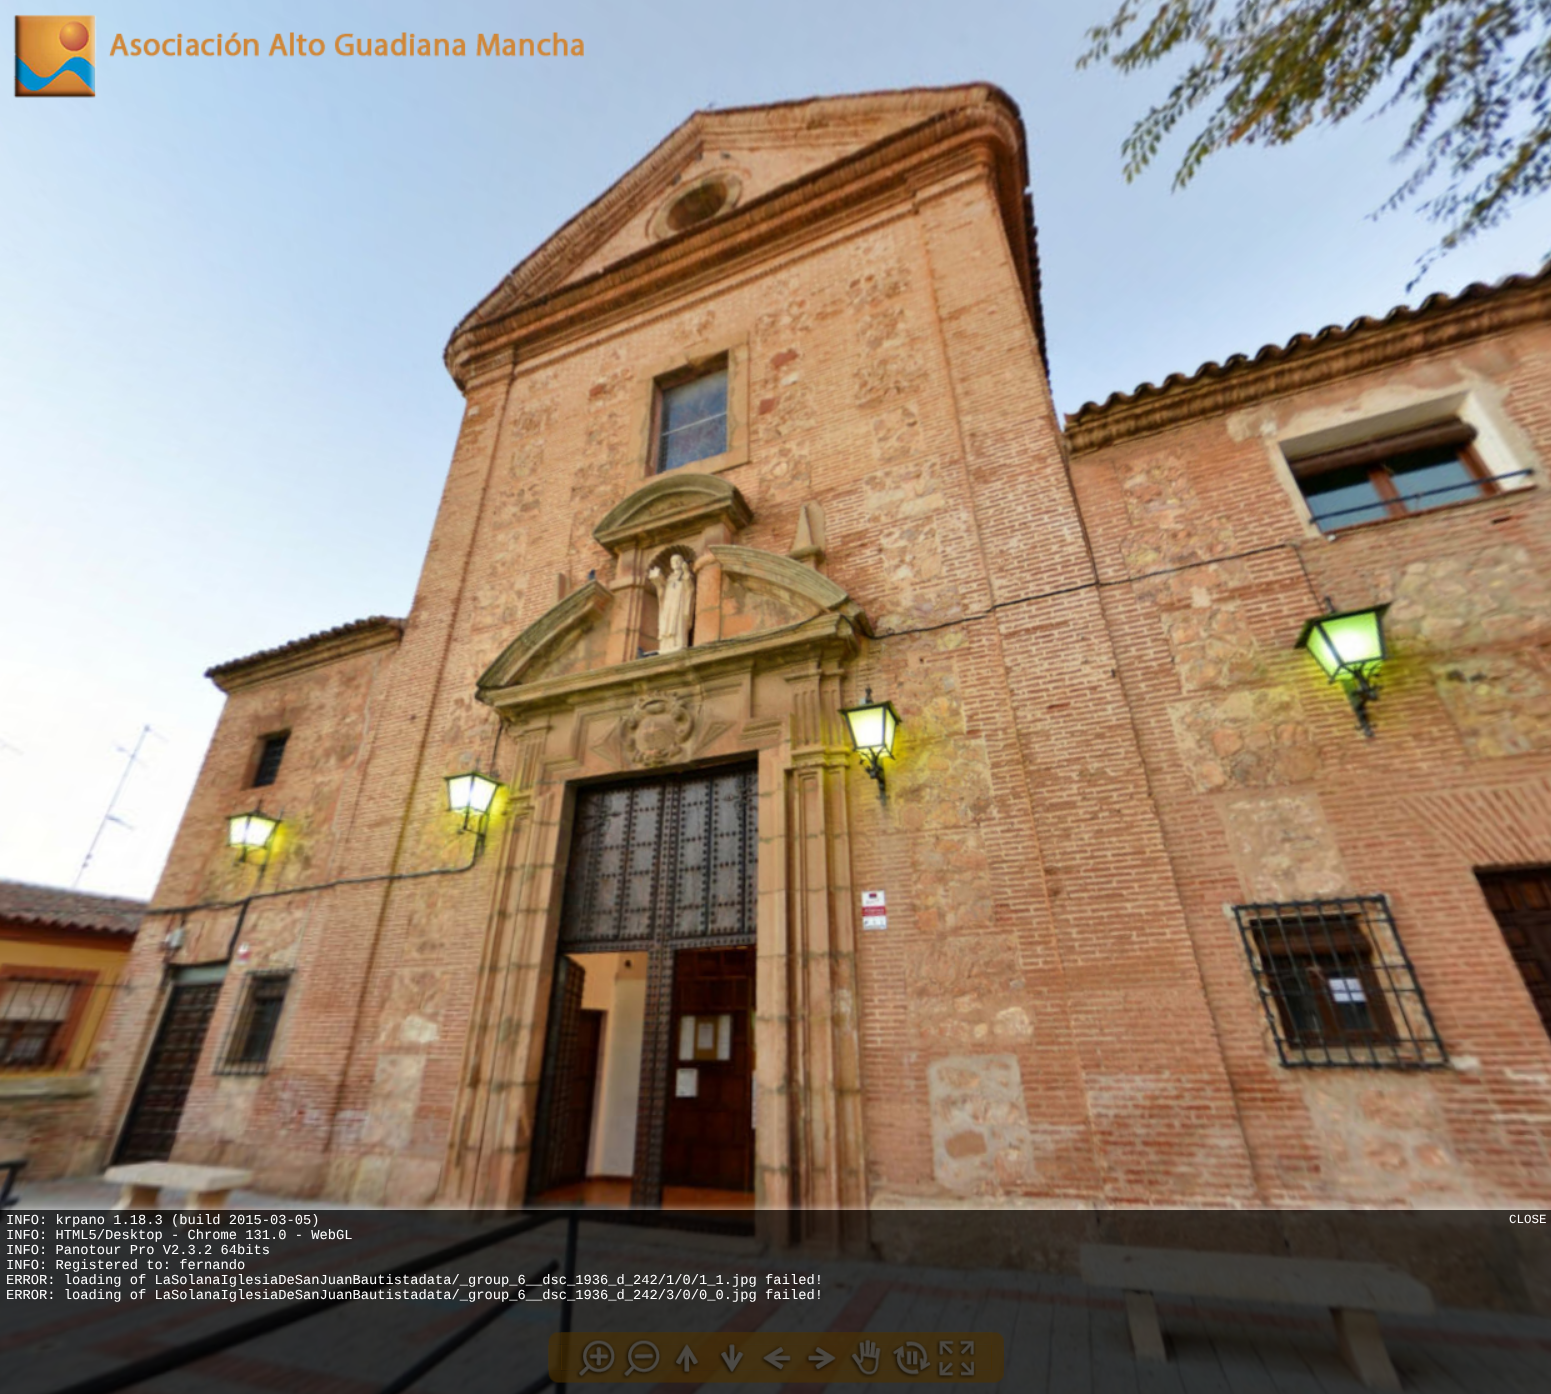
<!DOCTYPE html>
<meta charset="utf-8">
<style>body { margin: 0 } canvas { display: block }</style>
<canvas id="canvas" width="1551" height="1394"></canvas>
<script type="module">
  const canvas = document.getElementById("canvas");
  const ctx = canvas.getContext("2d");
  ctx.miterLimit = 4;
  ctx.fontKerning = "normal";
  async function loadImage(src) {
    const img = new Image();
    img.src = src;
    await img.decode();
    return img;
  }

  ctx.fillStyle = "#ffffff";
  ctx.fillRect(0, 0, 1551, 1394);
  ctx.drawImage(await loadImage("img1.png"), 0, 0, 1551, 1394);
  ctx.drawImage(await loadImage("img2.png"), 13, 14, 84, 84);
  ctx.drawImage(await loadImage("img3.png"), 108, 32, 476, 25);
  ctx.drawImage(await loadImage("img4.png"), 548, 1332, 14, 14);
  ctx.fillStyle = "rgba(255, 175, 0, 0.34)";
  ctx.fillRect(561, 1332, 431, 13);
  ctx.drawImage(await loadImage("img5.png"), 991, 1332, 13, 14);
  ctx.fillRect(548, 1345, 14, 25);
  ctx.fillRect(561, 1345, 431, 25);
  ctx.fillRect(991, 1345, 13, 25);
  ctx.drawImage(await loadImage("img6.png"), 548, 1370, 14, 13);
  ctx.drawImage(await loadImage("img7.png"), 560, 1369, 432, 14);
  ctx.drawImage(await loadImage("img8.png"), 991, 1370, 13, 13);
  ctx.drawImage(await loadImage("img9.png"), 548, 1332, 14, 14);
  ctx.drawImage(await loadImage("img16.png"), 576, 1339, 41, 40);
  ctx.drawImage(await loadImage("img17.png"), 621, 1338, 41, 41);
  ctx.drawImage(await loadImage("img18.png"), 672, 1343, 28, 33);
  ctx.drawImage(await loadImage("img19.png"), 718, 1343, 27, 32);
  ctx.drawImage(await loadImage("img22.png"), 848, 1338, 34, 40);
  ctx.drawImage(await loadImage("img23.png"), 890, 1339, 42, 39);
  ctx.drawImage(await loadImage("img24.png"), 936, 1339, 40, 40);
  ctx.drawImage(await loadImage("img10.png"), 561, 1332, 431, 14);
  ctx.drawImage(await loadImage("img11.png"), 991, 1332, 13, 13);
  ctx.drawImage(await loadImage("img12.png"), 548, 1345, 14, 25);
  ctx.drawImage(await loadImage("img20.png"), 760, 1346, 32, 27);
  ctx.drawImage(await loadImage("img21.png"), 805, 1346, 32, 27);
  ctx.fillStyle = "rgba(217, 133, 0, 0.44)";
  ctx.fillRect(561, 1345, 431, 25);
  ctx.fillRect(991, 1345, 13, 25);
  ctx.drawImage(await loadImage("img13.png"), 548, 1369, 14, 14);
  ctx.drawImage(await loadImage("img14.png"), 561, 1369, 431, 14);
  ctx.drawImage(await loadImage("img15.png"), 991, 1370, 13, 13);
  ctx.drawImage(await loadImage("img25.png"), 576, 1339, 41, 40);
  ctx.drawImage(await loadImage("img26.png"), 621, 1338, 41, 41);
  ctx.drawImage(await loadImage("img27.png"), 672, 1343, 28, 33);
  ctx.drawImage(await loadImage("img28.png"), 718, 1343, 27, 32);
  ctx.drawImage(await loadImage("img29.png"), 760, 1346, 32, 27);
  ctx.drawImage(await loadImage("img30.png"), 805, 1346, 32, 27);
  ctx.drawImage(await loadImage("img31.png"), 848, 1338, 34, 40);
  ctx.drawImage(await loadImage("img32.png"), 890, 1339, 42, 39);
  ctx.drawImage(await loadImage("img33.png"), 936, 1339, 40, 40);
  ctx.save();
  ctx.beginPath();
  ctx.rect(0, 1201, 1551, 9);
  ctx.clip();
  ctx.fillStyle = "rgba(255, 255, 255, 0.67)";
  ctx.filter = "blur(5px)";
  ctx.beginPath();
  ctx.rect(0, 1210, 1551, 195);
  ctx.fill();
  ctx.filter = "none";
  ctx.restore();
  ctx.fillStyle = "rgba(0, 0, 0, 0.67)";
  ctx.fillRect(0, 1210, 1551, 184);
  ctx.font = "13.75px Liberation Mono";
  ctx.fillStyle = "#ffffff";
  ctx.fillText("INFO: krpano 1.18.3 (build 2015-03-05)", 6, 1224);
  ctx.fillText("INFO: HTML5/Desktop - Chrome 131.0 - WebGL", 6, 1239);
  ctx.fillText("INFO: Panotour Pro V2.3.2 64bits", 6, 1254);
  ctx.fillText("INFO: Registered to: fernando", 6, 1269);
  ctx.fillText("ERROR: loading of LaSolanaIglesiaDeSanJuanBautistadata/_group_6__dsc_1936_d_242/1/0/1_1.jpg failed!", 6, 1284);
  ctx.fillText("ERROR: loading of LaSolanaIglesiaDeSanJuanBautistadata/_group_6__dsc_1936_d_242/3/0/0_0.jpg failed!", 6, 1299);
  ctx.font = "12.5px Liberation Mono";
  ctx.fillText("CLOSE", 1509, 1223);
</script>
